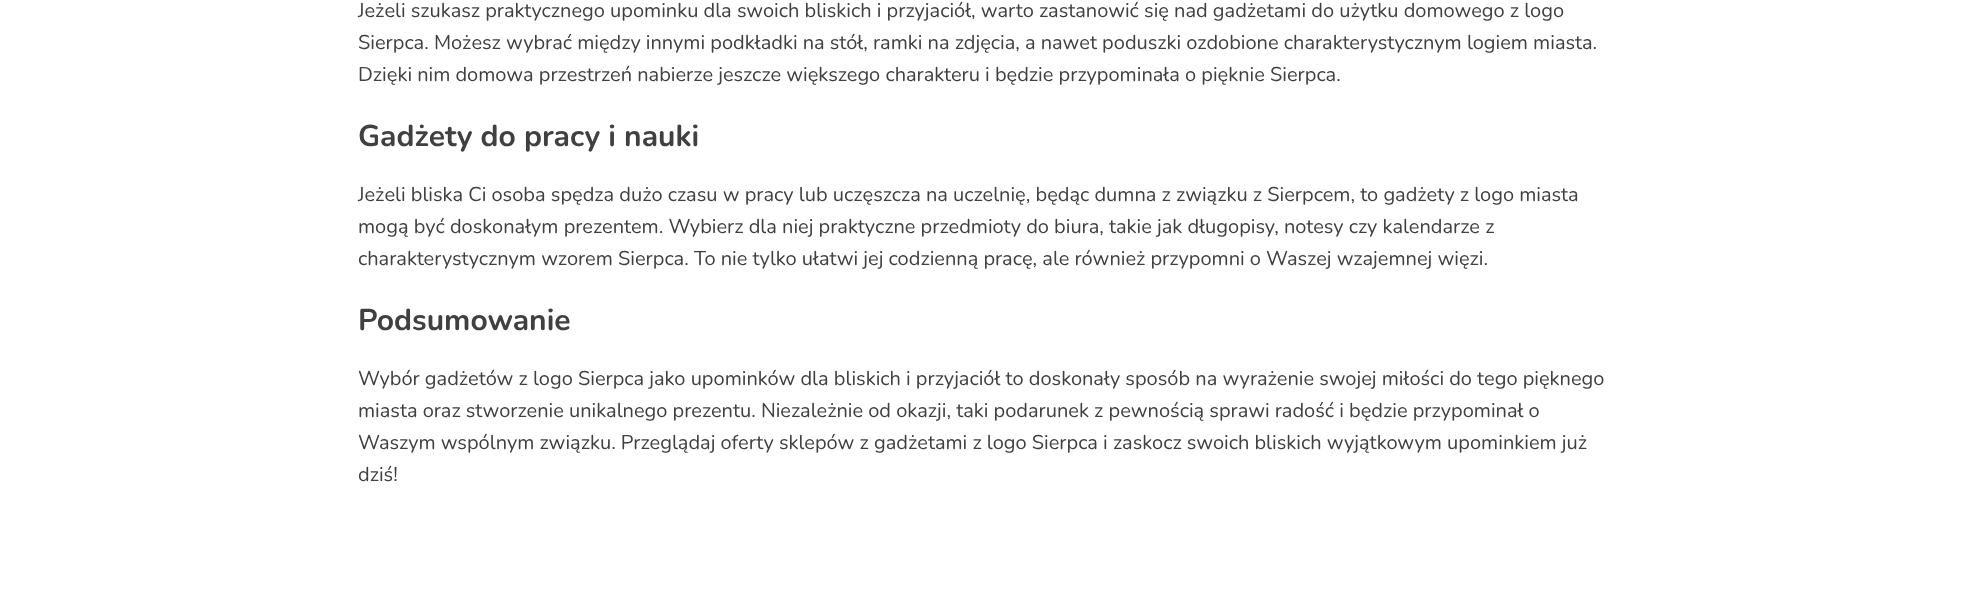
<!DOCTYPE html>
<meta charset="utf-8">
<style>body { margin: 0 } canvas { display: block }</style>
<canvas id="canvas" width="1966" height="613"></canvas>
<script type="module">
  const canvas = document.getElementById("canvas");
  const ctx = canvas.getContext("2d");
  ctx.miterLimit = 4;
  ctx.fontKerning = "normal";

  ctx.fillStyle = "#ffffff";
  ctx.fillRect(0, 0, 1966, 613);
  ctx.font = "20px Nunito";
  ctx.fillStyle = "#404040";
  ctx.fillText("Jeżeli szukasz praktycznego upominku dla swoich bliskich i przyjaciół, warto zastanowić się nad gadżetami do użytku domowego z logo", 358, 17);
  ctx.fillText("Sierpca. Możesz wybrać między innymi podkładki na stół, ramki na zdjęcia, a nawet poduszki ozdobione charakterystycznym logiem miasta.", 358, 49);
  ctx.fillText("Dzięki nim domowa przestrzeń nabierze jeszcze większego charakteru i będzie przypominała o pięknie Sierpca.", 358, 81);
  ctx.font = "bold 30px Nunito";
  ctx.fillText("Gadżety do pracy i nauki", 358, 146);
  ctx.font = "20px Nunito";
  ctx.fillText("Jeżeli bliska Ci osoba spędza dużo czasu w pracy lub uczęszcza na uczelnię, będąc dumna z związku z Sierpcem, to gadżety z logo miasta", 358, 201);
  ctx.fillText("mogą być doskonałym prezentem. Wybierz dla niej praktyczne przedmioty do biura, takie jak długopisy, notesy czy kalendarze z", 358, 233);
  ctx.fillText("charakterystycznym wzorem Sierpca. To nie tylko ułatwi jej codzienną pracę, ale również przypomni o Waszej wzajemnej więzi.", 358, 265);
  ctx.font = "bold 30px Nunito";
  ctx.fillText("Podsumowanie", 358, 330);
  ctx.font = "20px Nunito";
  ctx.fillText("Wybór gadżetów z logo Sierpca jako upominków dla bliskich i przyjaciół to doskonały sposób na wyrażenie swojej miłości do tego pięknego", 358, 385);
  ctx.fillText("miasta oraz stworzenie unikalnego prezentu. Niezależnie od okazji, taki podarunek z pewnością sprawi radość i będzie przypominał o", 358, 417);
  ctx.fillText("Waszym wspólnym związku. Przeglądaj oferty sklepów z gadżetami z logo Sierpca i zaskocz swoich bliskich wyjątkowym upominkiem już", 358, 449);
  ctx.fillText("dziś!", 358, 481);
</script>
